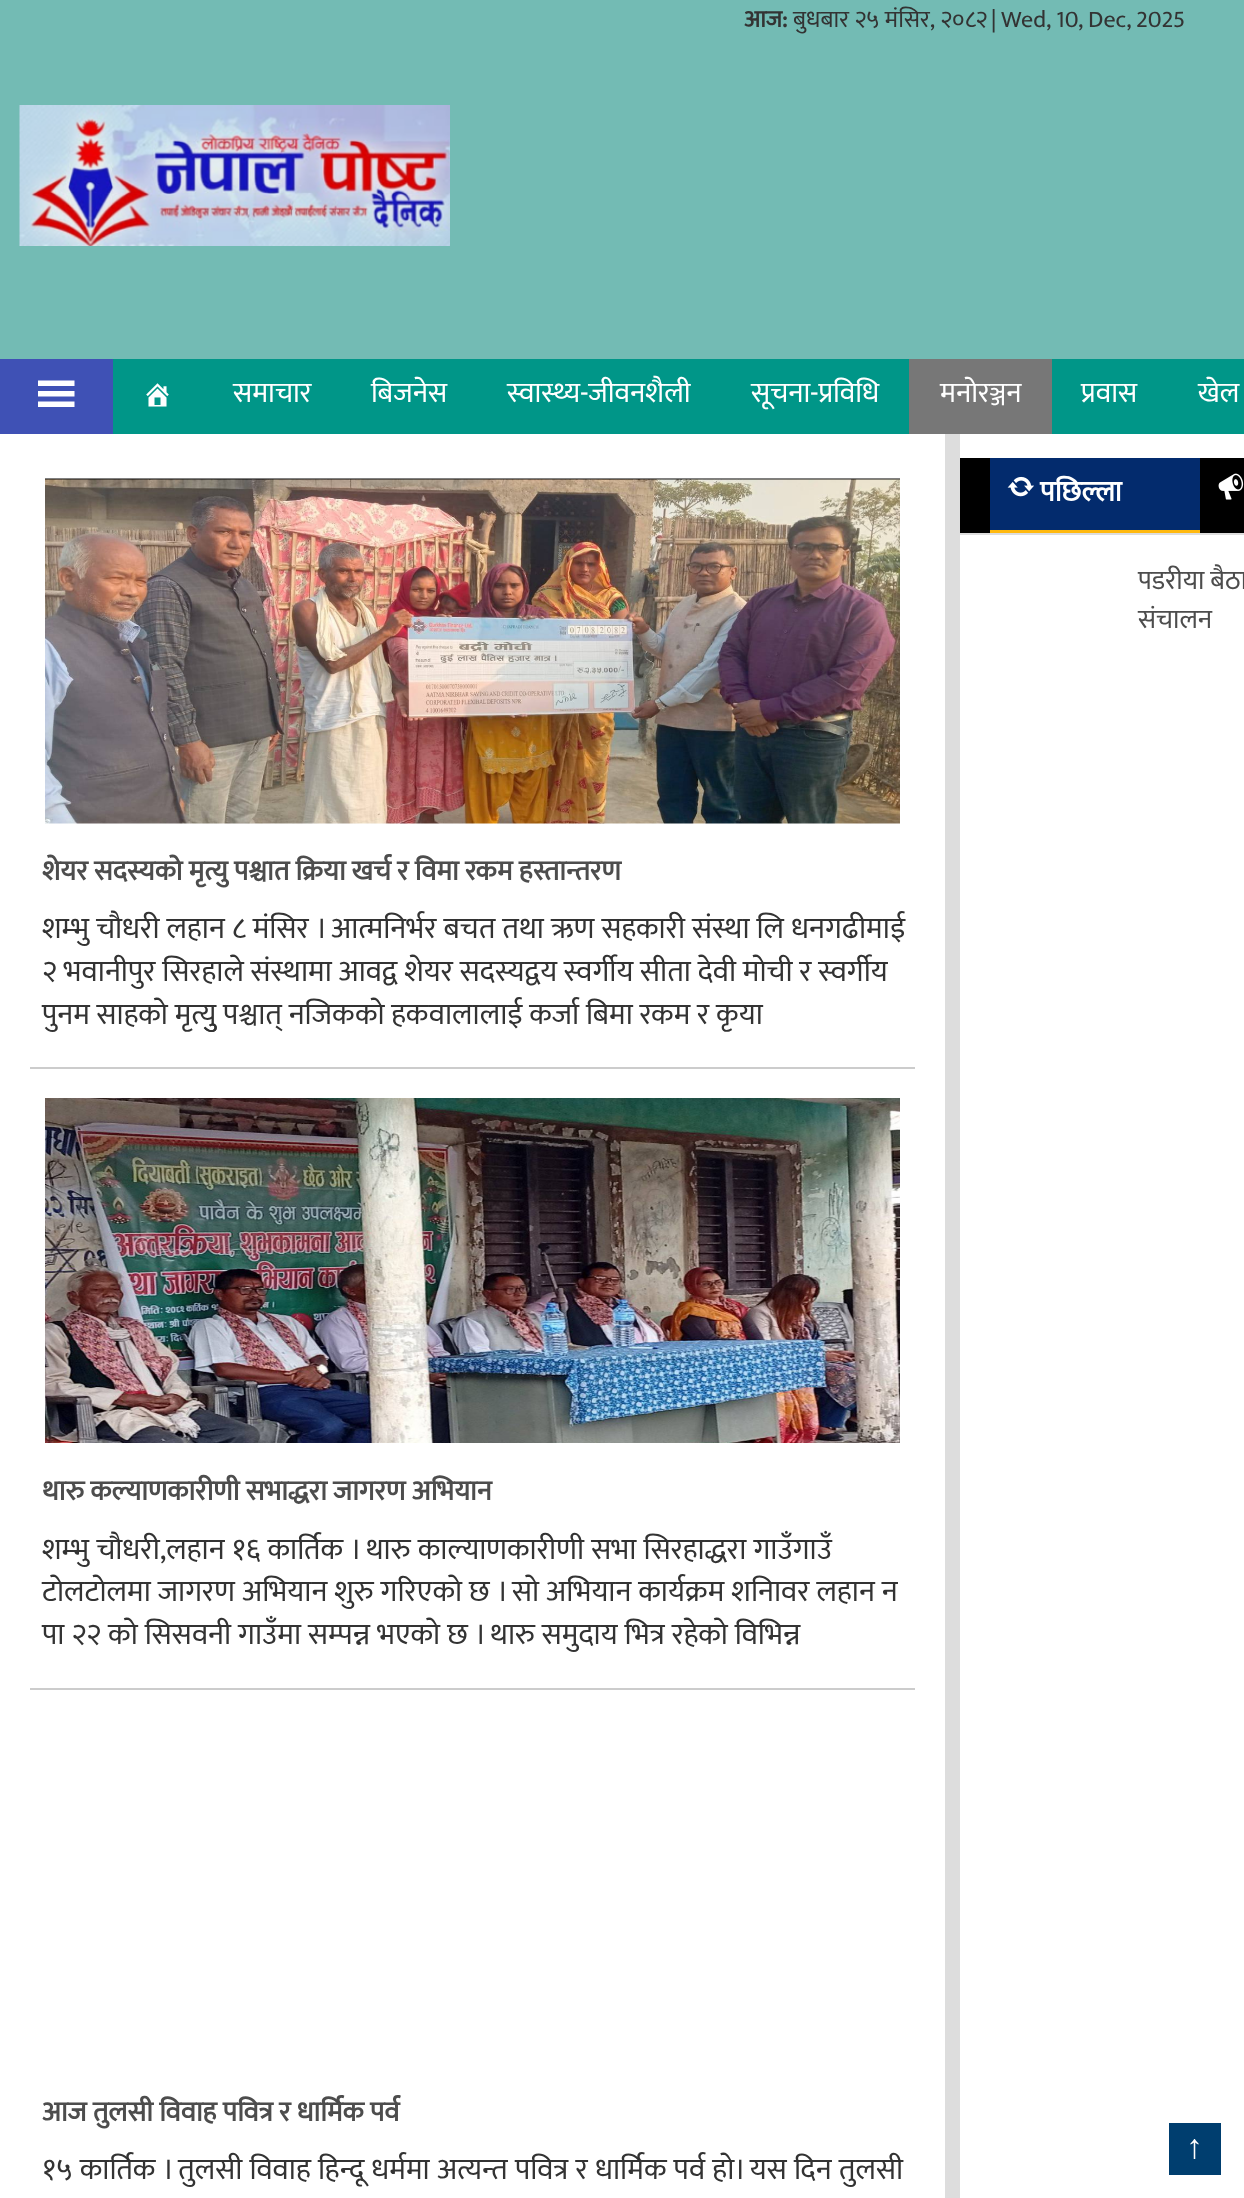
<!DOCTYPE html>
<meta charset="utf-8">
<style>body { margin: 0 } canvas { display: block }</style>
<canvas id="canvas" width="1244" height="2198"></canvas>
<script type="module">
  const canvas = document.getElementById("canvas");
  const ctx = canvas.getContext("2d");
  ctx.miterLimit = 4;
  ctx.fontKerning = "normal";
  async function loadImage(src) {
    const img = new Image();
    img.src = src;
    await img.decode();
    return img;
  }

  ctx.fillStyle = "#dddddd";
  ctx.fillRect(0, 0, 1244, 2198);
  ctx.fillStyle = "#73bbb4";
  ctx.fillRect(0, 0, 1244, 359);
  ctx.font = "bold 24px Ek Mukta";
  ctx.fillStyle = "#333333";
  ctx.fillText("आज:", 744, 27);
  ctx.font = "24px Ek Mukta";
  ctx.fillText("बुधबार २५ मंसिर, २०८२", 793, 27);
  ctx.wordSpacing = "-0.5px";
  ctx.fillText("| Wed, 10, Dec, 2025", 991, 27);
  ctx.drawImage(await loadImage("img1.png"), 19, 105, 431, 141);
  ctx.fillStyle = "#009688";
  ctx.fillRect(113, 359, 1131, 75);
  ctx.fillStyle = "#3f51b5";
  ctx.fillRect(0, 359, 113, 75);
  ctx.fillStyle = "#ffffff";
  ctx.beginPath();
  ctx.moveTo(38, 407);
  ctx.lineTo(74.5, 407);
  ctx.lineTo(74.5, 401.5);
  ctx.lineTo(38, 401.5);
  ctx.closePath();
  ctx.moveTo(38, 380.5);
  ctx.lineTo(38, 386);
  ctx.lineTo(74.5, 386);
  ctx.lineTo(74.5, 380.5);
  ctx.closePath();
  ctx.moveTo(38, 396.5);
  ctx.lineTo(74.5, 396.5);
  ctx.lineTo(74.5, 391);
  ctx.lineTo(38, 391);
  ctx.closePath();
  ctx.fill();
  ctx.drawImage(await loadImage("img2.png"), 146, 383, 23, 24);
  ctx.wordSpacing = "0px";
  ctx.font = "28.75px Ek Mukta";
  ctx.fillText("समाचार", 233, 402);
  ctx.fillText("बिजनेस", 371, 402);
  ctx.fillText("स्वास्थ्य-जीवनशैली", 507, 402);
  ctx.fillText("सूचना-प्रविधि", 751, 402);
  ctx.fillStyle = "#777777";
  ctx.fillRect(909, 359, 143, 75);
  ctx.fillStyle = "#ffffff";
  ctx.fillText("मनोरञ्जन", 940, 402);
  ctx.fillText("प्रवास", 1081, 402);
  ctx.fillText("खेल", 1198, 402);
  ctx.fillRect(960, 434, 284, 1764);
  ctx.fillStyle = "#000000";
  ctx.fillRect(960, 458, 284, 75);
  ctx.fillStyle = "#dddddd";
  ctx.fillRect(960, 533, 284, 2);
  ctx.fillStyle = "#032b6d";
  ctx.fillRect(990, 458, 210, 72);
  ctx.fillStyle = "#ffb90f";
  ctx.fillRect(990, 530, 210, 3);
  ctx.drawImage(await loadImage("img3.png"), 1007, 476, 27, 21);
  ctx.font = "bold 28.75px Ek Mukta";
  ctx.fillStyle = "#ffffff";
  ctx.fillText("पछिल्ला", 1040, 501);
  ctx.drawImage(await loadImage("img4.png"), 1218, 473, 26, 27);
  ctx.font = "27px Ek Mukta";
  ctx.fillStyle = "#4d4d4d";
  ctx.fillText("पडरीया बैठा", 1138, 589);
  ctx.fillText("संचालन", 1138, 628);
  ctx.fillStyle = "#ffffff";
  ctx.fillRect(0, 434, 945, 1764);
  ctx.fillStyle = "#cccccc";
  ctx.fillRect(30, 1067, 885, 2);
  ctx.drawImage(await loadImage("img5.png"), 45, 478, 855, 346);
  ctx.font = "bold 28.1px Ek Mukta";
  ctx.fillStyle = "#4d4d4d";
  ctx.fillText("शेयर सदस्यको मृत्यु पश्चात क्रिया खर्च र विमा रकम हस्तान्तरण", 42, 880);
  ctx.wordSpacing = "0.25px";
  ctx.font = "30px Ek Mukta";
  ctx.fillStyle = "#333333";
  ctx.fillText("शम्भु चौधरी लहान ८ मंसिर । आत्मनिर्भर बचत तथा ऋण सहकारी संस्था लि धनगढीमाई", 42, 938);
  ctx.wordSpacing = "0px";
  ctx.fillText("२ भवानीपुर सिरहाले संस्थामा आवद्व शेयर सदस्यद्वय स्वर्गीय सीता देवी मोची र स्वर्गीय", 42, 981);
  ctx.fillText("पुनम साहको मृत्युु पश्चात् नजिकको हकवालालाई कर्जा बिमा रकम र कृया", 42, 1024);
  ctx.fillStyle = "#cccccc";
  ctx.fillRect(30, 1688, 885, 2);
  ctx.drawImage(await loadImage("img6.png"), 45, 1098, 855, 345);
  ctx.font = "bold 28.1px Ek Mukta";
  ctx.fillStyle = "#4d4d4d";
  ctx.fillText("थारु कल्याणकारीणी सभाद्धरा जागरण अभियान", 42, 1500);
  ctx.wordSpacing = "0.5px";
  ctx.font = "30px Ek Mukta";
  ctx.fillStyle = "#333333";
  ctx.fillText("शम्भु चौधरी,लहान १६ कार्तिक । थारु काल्याणकारीणी सभा सिरहाद्धरा गाउँगाउँ", 42, 1559);
  ctx.wordSpacing = "0.25px";
  ctx.fillText("टोलटोलमा जागरण अभियान शुरु गरिएको छ । सो अभियान कार्यक्रम शनिावर लहान न", 42, 1601);
  ctx.fillText("पा २२ को सिसवनी गाउँमा सम्पन्न भएको छ । थारु समुदाय भित्र रहेको विभिन्न", 42, 1644);
  ctx.wordSpacing = "0px";
  ctx.font = "bold 28.1px Ek Mukta";
  ctx.fillStyle = "#4d4d4d";
  ctx.fillText("आज तुलसी विवाह पवित्र र धार्मिक पर्व", 42, 2121);
  ctx.wordSpacing = "0.5px";
  ctx.font = "30px Ek Mukta";
  ctx.fillStyle = "#333333";
  ctx.fillText("१५ कार्तिक । तुलसी विवाह हिन्दू धर्ममा अत्यन्त पवित्र र धार्मिक पर्व हो। यस दिन तुलसी", 42, 2179);
  ctx.fillStyle = "#003e6f";
  ctx.fillRect(1169, 2123, 52, 52);
  ctx.wordSpacing = "0px";
  ctx.font = "34px Liberation Serif";
  ctx.fillStyle = "#ffffff";
  ctx.fillText("↑", 1186, 2158);
</script>
